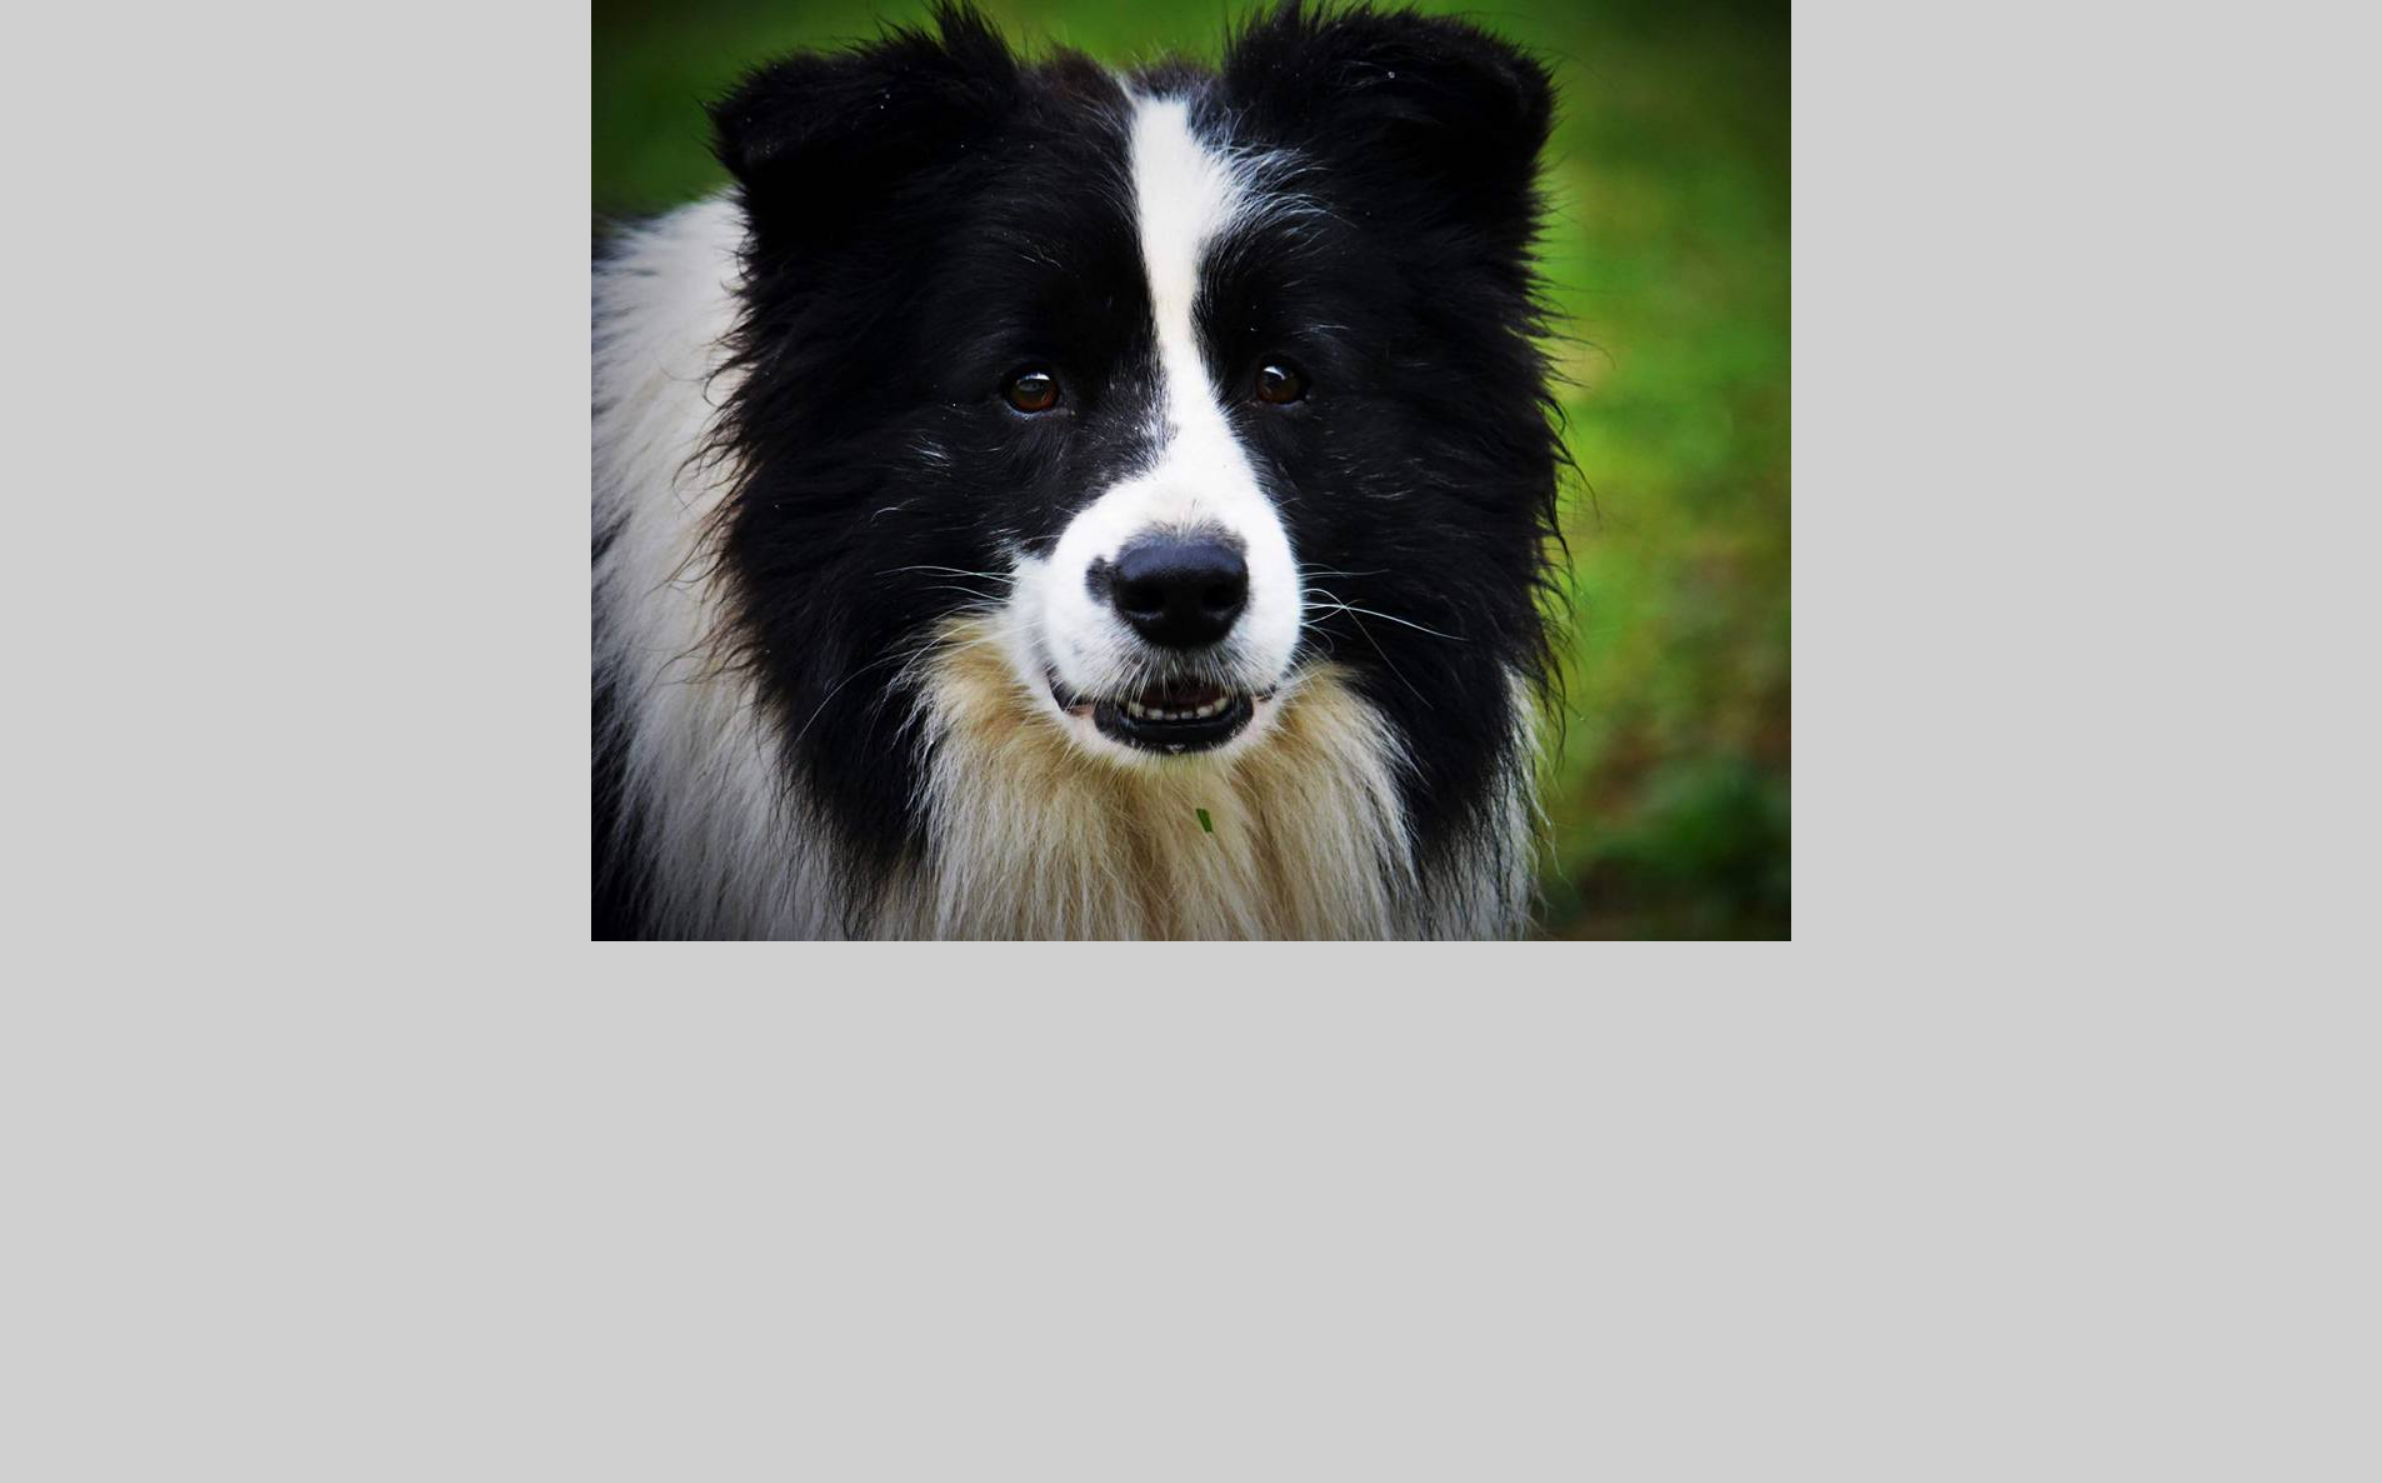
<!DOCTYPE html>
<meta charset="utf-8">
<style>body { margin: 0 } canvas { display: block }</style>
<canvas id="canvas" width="2382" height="1483"></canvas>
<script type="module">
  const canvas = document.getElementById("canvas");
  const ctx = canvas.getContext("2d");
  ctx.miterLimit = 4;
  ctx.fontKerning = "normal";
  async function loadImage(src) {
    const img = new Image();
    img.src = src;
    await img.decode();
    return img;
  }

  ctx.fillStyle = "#d0d0d0";
  ctx.fillRect(0, 0, 2382, 1483);
  ctx.drawImage(await loadImage("img1.png"), 591, 0, 1201, 942);
</script>
